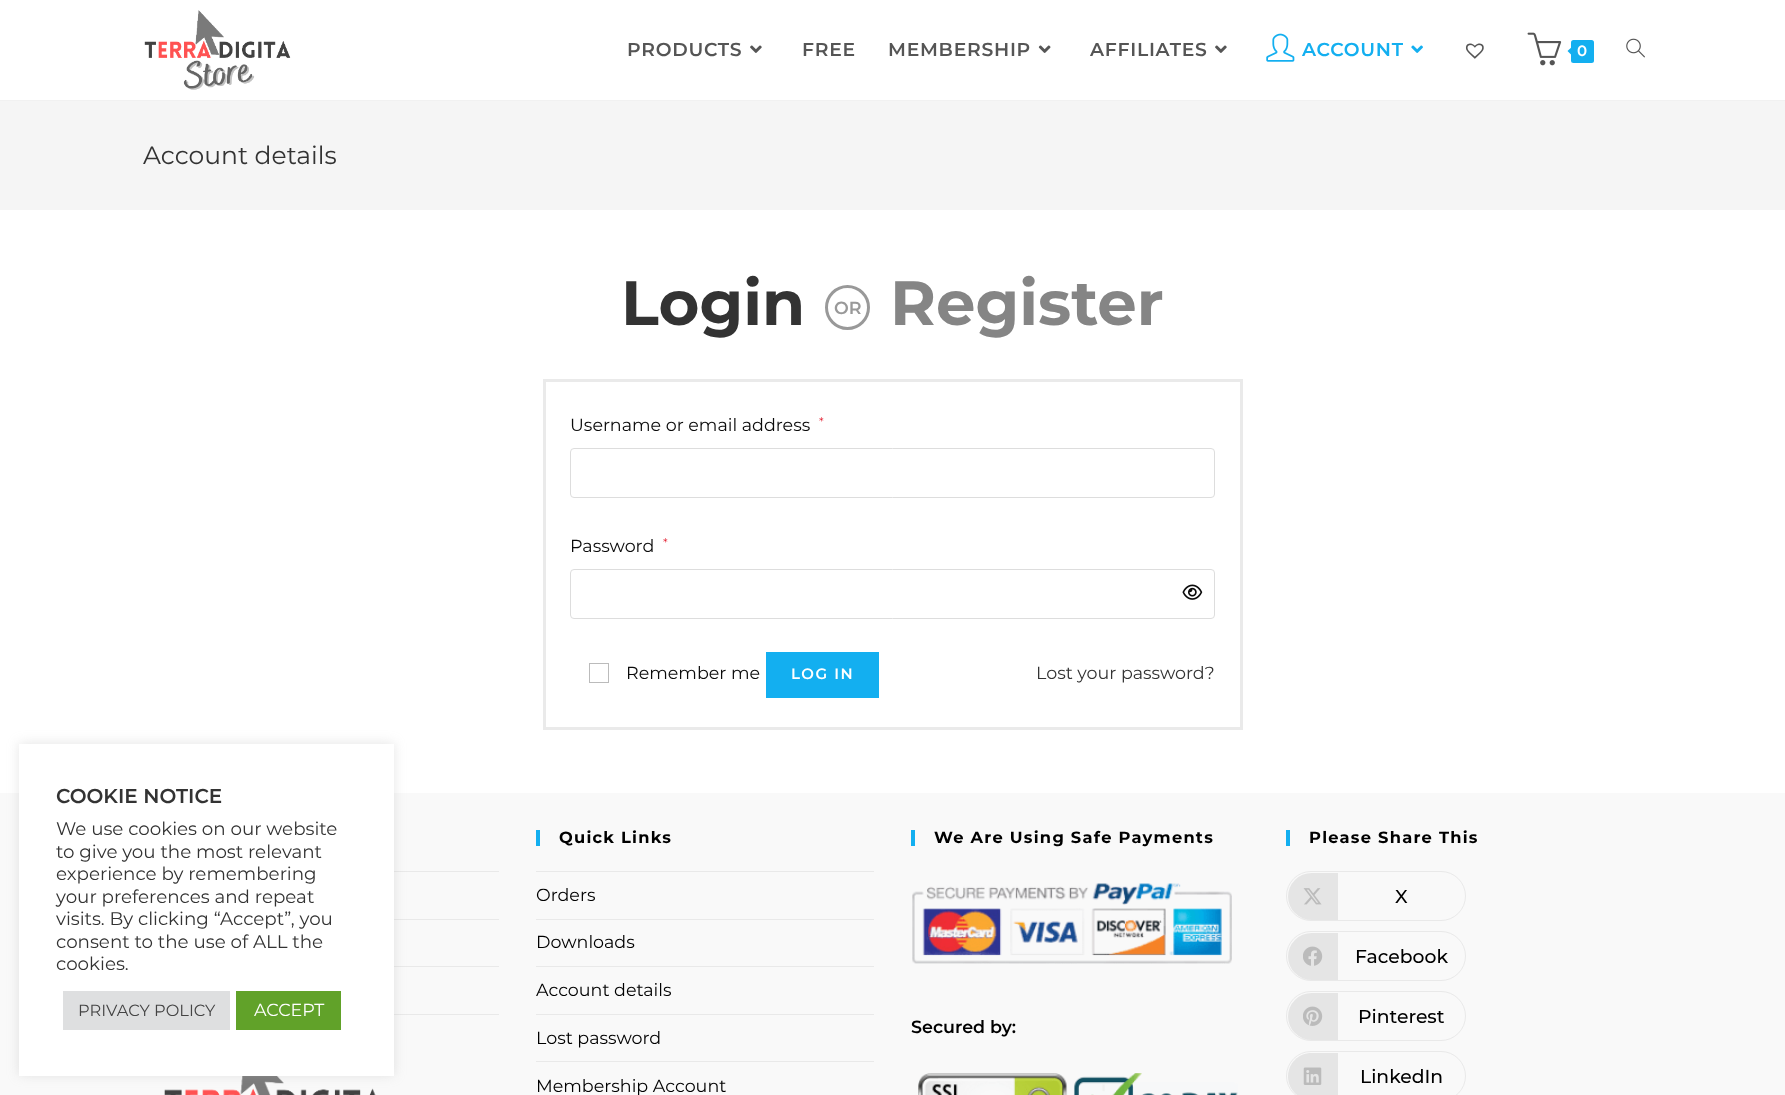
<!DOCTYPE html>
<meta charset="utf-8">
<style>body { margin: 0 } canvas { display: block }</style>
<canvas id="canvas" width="1785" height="1095"></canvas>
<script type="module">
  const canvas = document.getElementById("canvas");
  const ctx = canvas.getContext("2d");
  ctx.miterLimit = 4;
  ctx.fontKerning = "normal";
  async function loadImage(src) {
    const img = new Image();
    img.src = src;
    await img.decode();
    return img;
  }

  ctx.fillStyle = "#ffffff";
  ctx.fillRect(0, 0, 1785, 1095);
  ctx.fillStyle = "#f1f1f1";
  ctx.fillRect(0, 100, 1785, 1);
  ctx.drawImage(await loadImage("img1.png"), 144, 10, 147, 80);
  ctx.letterSpacing = "0.75px";
  ctx.font = "600 18.75px Montserrat";
  ctx.fillStyle = "#555555";
  ctx.fillText("PRODUCTS", 627, 56);
  ctx.drawImage(await loadImage("img2.png"), 750, 45, 12, 8);
  ctx.fillText("FREE", 802, 56);
  ctx.fillText("MEMBERSHIP", 888, 56);
  ctx.drawImage(await loadImage("img3.png"), 1038, 45, 13, 8);
  ctx.fillText("AFFILIATES", 1090, 56);
  ctx.drawImage(await loadImage("img2.png"), 1215, 45, 12, 8);
  ctx.drawImage(await loadImage("img4.png"), 1266, 33, 29, 29);
  ctx.fillStyle = "#13aff0";
  ctx.fillText("ACCOUNT", 1302, 56);
  ctx.drawImage(await loadImage("img5.png"), 1411, 45, 12, 8);
  ctx.drawImage(await loadImage("img6.png"), 1465, 43, 19, 16);
  ctx.drawImage(await loadImage("img7.png"), 1527, 32, 35, 34);
  ctx.beginPath();
  ctx.roundRect(1571, 40, 23, 23, 2.5);
  ctx.fill();
  ctx.beginPath();
  ctx.moveTo(1574, 45);
  ctx.lineTo(1574, 57.5);
  ctx.lineTo(1567.5, 51);
  ctx.closePath();
  ctx.fill();
  ctx.letterSpacing = "0px";
  ctx.font = "600 15px Montserrat";
  ctx.fillStyle = "#ffffff";
  ctx.fillText("0", 1577, 56);
  ctx.drawImage(await loadImage("img8.png"), 1626, 38, 19, 20);
  ctx.fillStyle = "#f5f5f5";
  ctx.fillRect(0, 101, 1785, 109);
  ctx.font = "100 25px Montserrat";
  ctx.fillStyle = "#333333";
  ctx.fillText("Account details", 143, 164);
  ctx.font = "100 62.5px 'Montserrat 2'";
  ctx.fillText("Login", 621, 325);
  ctx.beginPath();
  ctx.arc(847.5, 307.5, 21, 0, Math.PI * 2);
  ctx.strokeStyle = "#999999";
  ctx.lineWidth = 3;
  ctx.stroke();
  ctx.font = "600 17.5px Montserrat";
  ctx.fillStyle = "#999999";
  ctx.fillText("OR", 834, 314);
  ctx.font = "100 62.5px 'Montserrat 2'";
  ctx.fillStyle = "#858585";
  ctx.fillText("Register", 890, 325);
  ctx.strokeStyle = "#eaeaea";
  ctx.strokeRect(544.5, 380.5, 697, 348);
  ctx.font = "100 17.5px Montserrat";
  ctx.fillStyle = "#0a0a0a";
  ctx.fillText("Username or email address", 570, 431);
  ctx.font = "100 12px Montserrat";
  ctx.fillStyle = "#e42234";
  ctx.fillText("*", 819, 426);
  ctx.beginPath();
  ctx.roundRect(570.5, 448.5, 644, 49, 3.5);
  ctx.strokeStyle = "#dddddd";
  ctx.lineWidth = 1;
  ctx.stroke();
  ctx.font = "100 17.5px Montserrat";
  ctx.fillStyle = "#0a0a0a";
  ctx.fillText("Password", 570, 552);
  ctx.font = "100 12px Montserrat";
  ctx.fillStyle = "#e42234";
  ctx.fillText("*", 663, 547);
  ctx.beginPath();
  ctx.roundRect(570.5, 569.5, 644, 49, 3.5);
  ctx.stroke();
  ctx.drawImage(await loadImage("img9.png"), 1182, 584, 21, 16);
  ctx.strokeStyle = "#bbbbbb";
  ctx.strokeRect(589.5, 663.5, 19, 19);
  ctx.font = "100 17.5px Montserrat";
  ctx.fillStyle = "#0a0a0a";
  ctx.fillText("Remember me", 626, 679);
  ctx.fillStyle = "#13aff0";
  ctx.fillRect(766, 652, 113, 46);
  ctx.letterSpacing = "1.5px";
  ctx.font = "600 15px Montserrat";
  ctx.fillStyle = "#ffffff";
  ctx.fillText("LOG IN", 791, 679);
  ctx.letterSpacing = "0px";
  ctx.font = "100 17.5px Montserrat";
  ctx.fillStyle = "#333333";
  ctx.fillText("Lost your password?", 1036, 679);
  ctx.fillStyle = "#f9f9f9";
  ctx.fillRect(0, 793, 1785, 302);
  ctx.fillStyle = "#e9e9e9";
  ctx.fillRect(394, 871, 105, 1);
  ctx.fillRect(394, 919, 105, 1);
  ctx.fillRect(394, 966, 105, 1);
  ctx.fillRect(394, 1014, 105, 1);
  ctx.drawImage(await loadImage("img10.png"), 164, 1076, 212, 19);
  ctx.fillStyle = "#13aff0";
  ctx.fillRect(536, 830, 4, 16);
  ctx.letterSpacing = "1.25px";
  ctx.font = "100 16.25px 'Montserrat 2'";
  ctx.fillStyle = "#000000";
  ctx.fillText("Quick Links", 559, 843);
  ctx.fillStyle = "#e9e9e9";
  ctx.fillRect(536, 871, 338, 1);
  ctx.fillRect(536, 919, 338, 1);
  ctx.letterSpacing = "0px";
  ctx.font = "100 17.5px Montserrat";
  ctx.fillStyle = "#000000";
  ctx.fillText("Orders", 536, 901);
  ctx.fillStyle = "#e9e9e9";
  ctx.fillRect(536, 966, 338, 1);
  ctx.fillStyle = "#000000";
  ctx.fillText("Downloads", 536, 948);
  ctx.fillStyle = "#e9e9e9";
  ctx.fillRect(536, 1014, 338, 1);
  ctx.fillStyle = "#000000";
  ctx.fillText("Account details", 536, 996);
  ctx.fillStyle = "#e9e9e9";
  ctx.fillRect(536, 1061, 338, 1);
  ctx.fillStyle = "#000000";
  ctx.fillText("Lost password", 536, 1044);
  ctx.fillText("Membership Account", 536, 1092);
  ctx.fillStyle = "#13aff0";
  ctx.fillRect(911, 830, 4, 16);
  ctx.letterSpacing = "1.25px";
  ctx.font = "100 16.25px 'Montserrat 2'";
  ctx.fillStyle = "#000000";
  ctx.fillText("We Are Using Safe Payments", 934, 843);
  ctx.drawImage(await loadImage("img11.png"), 912, 883, 320, 81);
  ctx.letterSpacing = "0px";
  ctx.font = "600 17.5px Montserrat";
  ctx.fillText("Secured by:", 911, 1033);
  ctx.drawImage(await loadImage("img12.png"), 918, 1073, 320, 22);
  ctx.fillStyle = "#13aff0";
  ctx.fillRect(1286, 830, 4, 16);
  ctx.letterSpacing = "1.25px";
  ctx.font = "100 16.25px 'Montserrat 2'";
  ctx.fillStyle = "#000000";
  ctx.fillText("Please Share This", 1309, 843);
  ctx.beginPath();
  ctx.roundRect(1286.5, 871.5, 179, 49, 24.5);
  ctx.strokeStyle = "#e9e9e9";
  ctx.stroke();
  ctx.fillStyle = "rgba(0, 0, 0, 0.08)";
  ctx.beginPath();
  ctx.roundRect(1288, 873, 50, 47, [23.5, 0, 0, 23.5]);
  ctx.fill();
  ctx.drawImage(await loadImage("img13.png"), 1303, 888, 19, 17);
  ctx.letterSpacing = "0px";
  ctx.font = "100 18.75px 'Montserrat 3'";
  ctx.fillStyle = "#000000";
  ctx.fillText("X", 1395, 903);
  ctx.beginPath();
  ctx.roundRect(1286.5, 931.5, 179, 49, 24.5);
  ctx.stroke();
  ctx.fillStyle = "rgba(0, 0, 0, 0.08)";
  ctx.beginPath();
  ctx.roundRect(1288, 933, 50, 47, [23.5, 0, 0, 23.5]);
  ctx.fill();
  ctx.drawImage(await loadImage("img14.png"), 1303, 946, 20, 20);
  ctx.fillStyle = "#000000";
  ctx.fillText("Facebook", 1355, 963);
  ctx.beginPath();
  ctx.roundRect(1286.5, 991.5, 179, 49, 24.5);
  ctx.stroke();
  ctx.fillStyle = "rgba(0, 0, 0, 0.08)";
  ctx.beginPath();
  ctx.roundRect(1288, 993, 50, 47, [23.5, 0, 0, 23.5]);
  ctx.fill();
  ctx.drawImage(await loadImage("img15.png"), 1303, 1006, 20, 20);
  ctx.fillStyle = "#000000";
  ctx.fillText("Pinterest", 1358, 1023);
  ctx.beginPath();
  ctx.roundRect(1286.5, 1051.5, 179, 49, 24.5);
  ctx.stroke();
  ctx.fillStyle = "#e5e5e5";
  ctx.beginPath();
  ctx.moveTo(1311.5, 1053);
  ctx.lineTo(1338, 1053);
  ctx.lineTo(1338, 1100);
  ctx.lineTo(1311.5, 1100);
  ctx.bezierCurveTo(1298.5, 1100, 1288, 1089.5, 1288, 1076.5);
  ctx.bezierCurveTo(1288, 1063.5, 1298.5, 1053, 1311.5, 1053);
  ctx.closePath();
  ctx.fill();
  ctx.drawImage(await loadImage("img16.png"), 1303, 1067, 19, 18);
  ctx.fillStyle = "#000000";
  ctx.fillText("LinkedIn", 1360, 1083);
  ctx.fillStyle = "rgba(172, 171, 171, 0.3)";
  ctx.filter = "blur(6px)";
  ctx.beginPath();
  ctx.rect(19, 743, 375, 332);
  ctx.fill();
  ctx.filter = "none";
  ctx.fillStyle = "#ffffff";
  ctx.fillRect(19, 744, 375, 332);
  ctx.font = "600 20px Montserrat";
  ctx.fillStyle = "#333333";
  ctx.fillText("COOKIE NOTICE", 56, 803);
  ctx.font = "100 18.3px Montserrat";
  ctx.fillText("We use cookies on our website", 56, 835);
  ctx.fillText("to give you the most relevant", 56, 858);
  ctx.fillText("experience by remembering", 56, 880);
  ctx.fillText("your preferences and repeat", 56, 903);
  ctx.fillText("visits. By clicking “Accept”, you", 56, 925);
  ctx.fillText("consent to the use of ALL the", 56, 948);
  ctx.fillText("cookies.", 56, 970);
  ctx.fillStyle = "#dedfe0";
  ctx.fillRect(63, 991, 167, 39);
  ctx.font = "100 16.25px Montserrat";
  ctx.fillStyle = "#444444";
  ctx.fillText("PRIVACY POLICY", 78, 1016);
  ctx.fillStyle = "#61a229";
  ctx.fillRect(236, 991, 105, 39);
  ctx.font = "100 17.5px Montserrat";
  ctx.fillStyle = "#ffffff";
  ctx.fillText("ACCEPT", 254, 1016);
</script>
